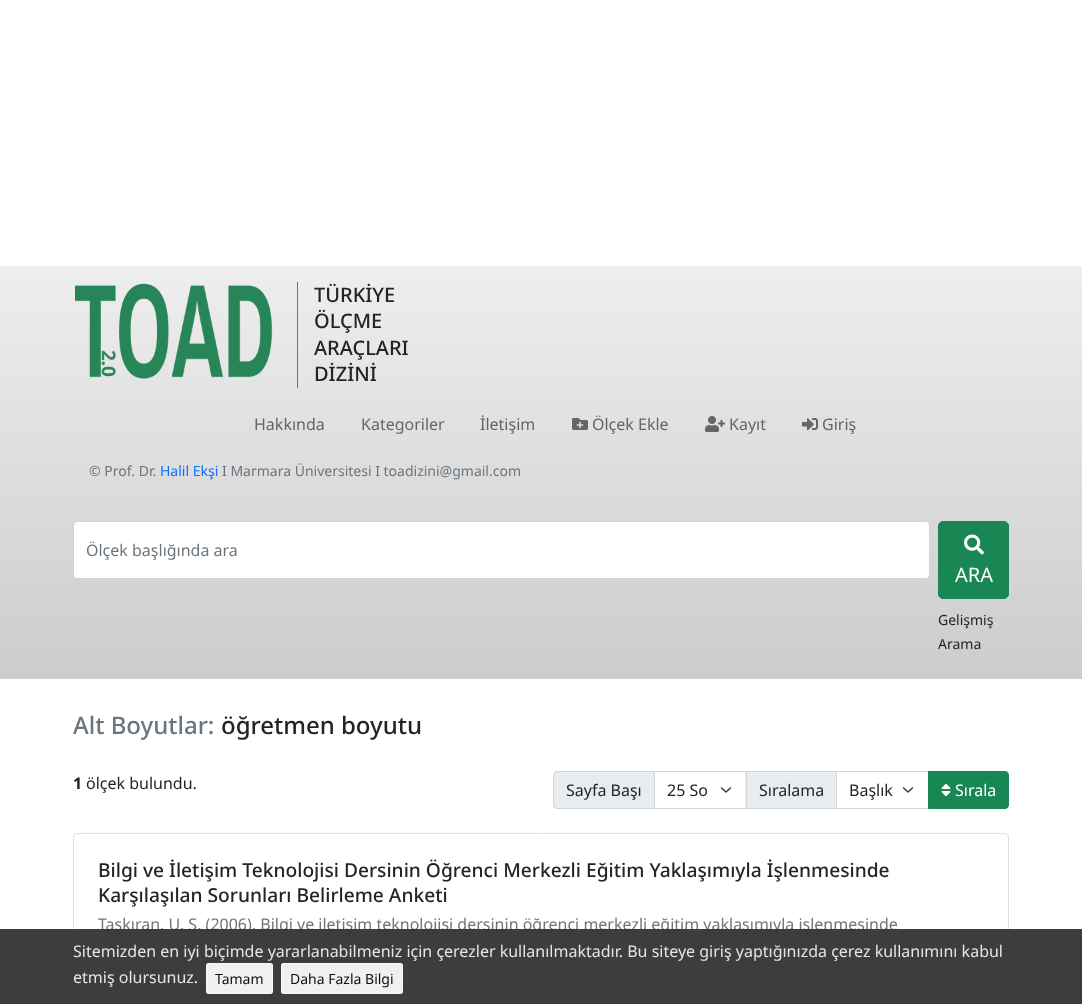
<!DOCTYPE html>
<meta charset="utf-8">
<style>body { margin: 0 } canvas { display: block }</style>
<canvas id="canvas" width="1082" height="1004"></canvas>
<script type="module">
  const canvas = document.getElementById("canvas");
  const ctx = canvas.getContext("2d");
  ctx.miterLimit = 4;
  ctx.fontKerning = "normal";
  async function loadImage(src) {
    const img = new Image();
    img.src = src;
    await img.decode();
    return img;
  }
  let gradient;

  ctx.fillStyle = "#ffffff";
  ctx.fillRect(0, 0, 1082, 1004);
  gradient = ctx.createLinearGradient(541, 679, 541, 266);
  gradient.addColorStop(0, "#cccccc");
  gradient.addColorStop(1, "#eeeeee");
  ctx.fillStyle = gradient;
  ctx.fillRect(0, 266, 1082, 413);
  ctx.drawImage(await loadImage("img1.png"), 75, 283, 198, 96);
  ctx.fillStyle = "#6c757d";
  ctx.fillRect(297, 282, 1, 106);
  ctx.font = "500 20px Noto Sans";
  ctx.fillStyle = "#212529";
  ctx.fillText("TÜRKİYE", 314, 302);
  ctx.fillText("ÖLÇME", 314, 328);
  ctx.fillText("ARAÇLARI", 314, 355);
  ctx.fillText("DİZİNİ", 314, 381);
  ctx.font = "16px Noto Sans";
  ctx.fillStyle = "#656565";
  ctx.fillText("Hakkında", 254, 430);
  ctx.fillText("Kategoriler", 361, 430);
  ctx.fillText("İletişim", 480, 430);
  ctx.drawImage(await loadImage("img2.png"), 572, 418, 16, 12);
  ctx.fillText("Ölçek Ekle", 592, 430);
  ctx.drawImage(await loadImage("img3.png"), 705, 416, 20, 16);
  ctx.fillText("Kayıt", 729, 430);
  ctx.drawImage(await loadImage("img4.png"), 802, 418, 16, 13);
  ctx.fillText("Giriş", 822, 430);
  ctx.font = "14px Noto Sans";
  ctx.fillStyle = "#6c757d";
  ctx.fillText("© Prof. Dr.", 89, 476);
  ctx.fillStyle = "#0d6efd";
  ctx.fillText("Halil Ekşi", 160, 476);
  ctx.fillStyle = "#6c757d";
  ctx.fillText("I Marmara Üniversitesi I toadizini@gmail.com", 222, 476);
  ctx.fillStyle = "#ffffff";
  ctx.beginPath();
  ctx.roundRect(73.5, 521.5, 856, 57, 3.5);
  ctx.fill();
  ctx.strokeStyle = "#ced4da";
  ctx.stroke();
  ctx.font = "16px Noto Sans";
  ctx.fillStyle = "#6c757d";
  ctx.fillText("Ölçek başlığında ara", 86, 556);
  ctx.fillStyle = "#198754";
  ctx.beginPath();
  ctx.roundRect(938.5, 521.5, 70, 77, 4.5);
  ctx.fill();
  ctx.strokeStyle = "#198754";
  ctx.stroke();
  ctx.drawImage(await loadImage("img5.png"), 964, 534, 20, 21);
  ctx.font = "20px Noto Sans";
  ctx.fillStyle = "#ffffff";
  ctx.fillText("ARA", 955, 582);
  ctx.font = "14px Noto Sans";
  ctx.fillStyle = "#212529";
  ctx.fillText("Gelişmiş", 938, 625);
  ctx.fillText("Arama", 938, 649);
  ctx.font = "500 24px Noto Sans";
  ctx.fillStyle = "#6c757d";
  ctx.fillText("Alt Boyutlar:", 73, 734);
  ctx.fillStyle = "#212529";
  ctx.fillText("öğretmen boyutu", 221, 734);
  ctx.font = "bold 16px Noto Sans";
  ctx.fillText("1", 73, 789);
  ctx.font = "16px Noto Sans";
  ctx.fillText("ölçek bulundu.", 86, 789);
  ctx.fillStyle = "#e9ecef";
  ctx.beginPath();
  ctx.roundRect(553.5, 771.5, 101, 37, [3.5, 0, 0, 3.5]);
  ctx.fill();
  ctx.strokeStyle = "#ced4da";
  ctx.stroke();
  ctx.fillStyle = "#212529";
  ctx.fillText("Sayfa Başı", 566, 796);
  ctx.beginPath();
  ctx.moveTo(721.5, 788);
  ctx.lineTo(726, 792);
  ctx.lineTo(730.5, 788);
  ctx.strokeStyle = "#343a40";
  ctx.lineWidth = 1.5;
  ctx.lineCap = "round";
  ctx.lineJoin = "round";
  ctx.stroke();
  ctx.fillStyle = "#e9ecef";
  ctx.beginPath();
  ctx.rect(746.5, 771.5, 90, 37);
  ctx.fill();
  ctx.strokeStyle = "#ced4da";
  ctx.lineWidth = 1;
  ctx.lineJoin = "miter";
  ctx.stroke();
  ctx.strokeRect(654.5, 771.5, 92, 37);
  ctx.fillStyle = "#212529";
  ctx.fillText("25 So", 667, 796);
  ctx.fillText("Sıralama", 759, 796);
  ctx.beginPath();
  ctx.moveTo(903.5, 788);
  ctx.lineTo(908, 792);
  ctx.lineTo(912.5, 788);
  ctx.strokeStyle = "#343a40";
  ctx.lineWidth = 1.5;
  ctx.lineJoin = "round";
  ctx.stroke();
  ctx.strokeStyle = "#ced4da";
  ctx.lineWidth = 1;
  ctx.lineJoin = "miter";
  ctx.strokeRect(836.5, 771.5, 92, 37);
  ctx.fillText("Başlık", 849, 796);
  ctx.fillStyle = "#198754";
  ctx.beginPath();
  ctx.roundRect(928.5, 771.5, 80, 37, [0, 3.5, 3.5, 0]);
  ctx.fill();
  ctx.strokeStyle = "#198754";
  ctx.stroke();
  ctx.drawImage(await loadImage("img6.png"), 941, 783, 10, 14);
  ctx.fillStyle = "#ffffff";
  ctx.fillText("Sırala", 955, 796);
  ctx.beginPath();
  ctx.roundRect(73.5, 833.5, 935, 155, 3.5);
  ctx.strokeStyle = "#dfdfdf";
  ctx.stroke();
  ctx.font = "500 19.2px Noto Sans";
  ctx.fillStyle = "#212529";
  ctx.fillText("Bilgi ve İletişim Teknolojisi Dersinin Öğrenci Merkezli Eğitim Yaklaşımıyla İşlenmesinde", 98, 877);
  ctx.fillText("Karşılaşılan Sorunları Belirleme Anketi", 98, 902);
  ctx.font = "16px Noto Sans";
  ctx.fillStyle = "#6c757d";
  ctx.fillText("Taşkıran, U. Ş. (2006). Bilgi ve iletişim teknolojisi dersinin öğrenci merkezli eğitim yaklaşımıyla işlenmesinde", 98, 930);
  ctx.fillStyle = "rgba(51, 51, 51, 0.95)";
  ctx.fillRect(0, 929, 1082, 75);
  ctx.fillStyle = "#e5e5e5";
  ctx.fillText("Sitemizden en iyi biçimde yararlanabilmeniz için çerezler kullanılmaktadır. Bu siteye giriş yaptığınızda çerez kullanımını kabul", 73, 957);
  ctx.fillText("etmiş olursunuz.", 73, 983);
  ctx.fillStyle = "#eff0f1";
  ctx.beginPath();
  ctx.roundRect(206, 963, 67, 31, 3);
  ctx.fill();
  ctx.beginPath();
  ctx.roundRect(206.5, 963.5, 66, 30, 2.5);
  ctx.strokeStyle = "rgba(248, 249, 250, 0.95)";
  ctx.stroke();
  ctx.font = "14px Noto Sans";
  ctx.fillStyle = "#0d0d0d";
  ctx.fillText("Tamam", 215, 984);
  ctx.fillStyle = "#eff0f1";
  ctx.beginPath();
  ctx.roundRect(281, 963, 122, 31, 3);
  ctx.fill();
  ctx.beginPath();
  ctx.roundRect(281.5, 963.5, 121, 30, 2.5);
  ctx.stroke();
  ctx.fillStyle = "#0d0d0d";
  ctx.fillText("Daha Fazla Bilgi", 290, 984);
</script>
